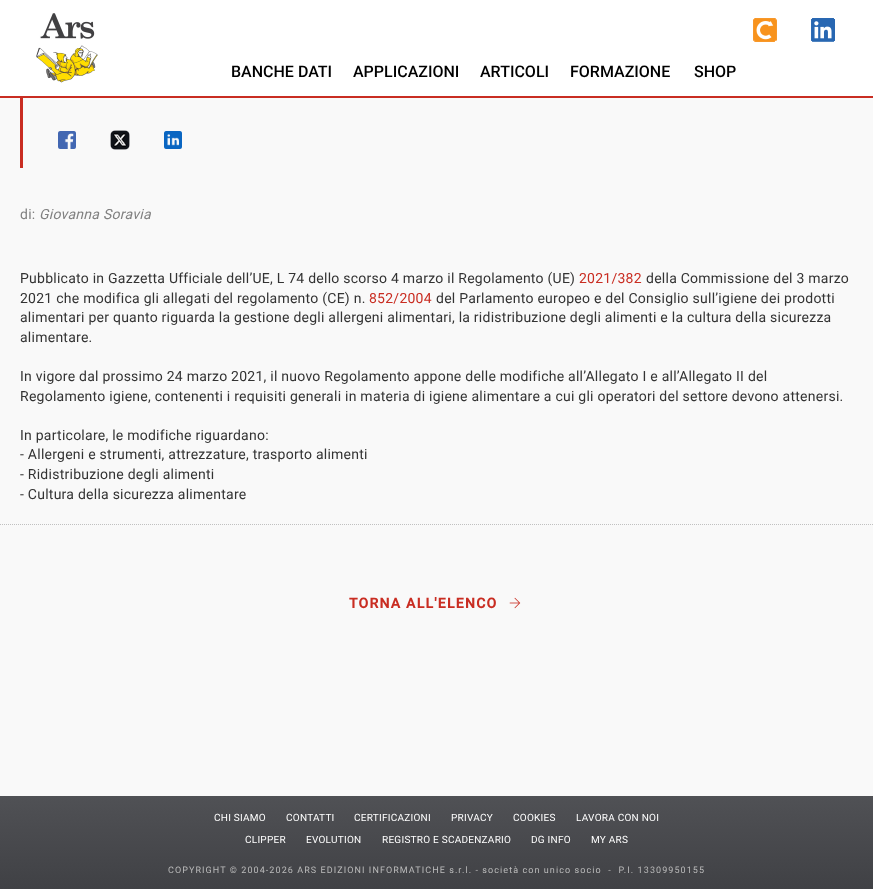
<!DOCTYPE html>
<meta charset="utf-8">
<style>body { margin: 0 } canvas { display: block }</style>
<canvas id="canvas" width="873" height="889"></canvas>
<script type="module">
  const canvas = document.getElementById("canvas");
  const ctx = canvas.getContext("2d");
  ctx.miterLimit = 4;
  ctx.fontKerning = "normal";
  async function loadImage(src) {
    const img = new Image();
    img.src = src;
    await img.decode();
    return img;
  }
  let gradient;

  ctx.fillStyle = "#f9f9f9";
  ctx.fillRect(0, 0, 873, 889);
  ctx.fillStyle = "#ffffff";
  ctx.fillRect(0, 0, 873, 96);
  ctx.fillStyle = "#c92d22";
  ctx.fillRect(0, 96, 873, 2);
  ctx.drawImage(await loadImage("img1.png"), 36, 13, 62, 70);
  ctx.drawImage(await loadImage("img2.png"), 753, 18, 24, 24);
  ctx.drawImage(await loadImage("img3.png"), 811, 18, 24, 24);
  ctx.font = "500 16px Roboto";
  ctx.fillStyle = "#000000";
  ctx.fillText("BANCHE DATI", 231, 77);
  ctx.fillText("APPLICAZIONI", 353, 77);
  ctx.fillText("ARTICOLI", 480, 77);
  ctx.fillText("FORMAZIONE", 570, 77);
  ctx.fillText("SHOP", 694, 77);
  ctx.fillStyle = "#c92d22";
  ctx.fillRect(20, 98, 3, 70);
  ctx.drawImage(await loadImage("img4.png"), 58, 131, 18, 18);
  ctx.drawImage(await loadImage("img5.png"), 110, 130, 20, 20);
  ctx.drawImage(await loadImage("img6.png"), 164, 131, 18, 18);
  ctx.beginPath();
  ctx.moveTo(0, 524.5);
  ctx.lineTo(873, 524.5);
  ctx.strokeStyle = "#c0c0c0";
  ctx.setLineDash([1, 1]);
  ctx.stroke();
  ctx.letterSpacing = "0.25px";
  ctx.font = "14px Roboto";
  ctx.fillStyle = "#808080";
  ctx.fillText("di:", 20, 219);
  ctx.font = "italic 14px Roboto";
  ctx.fillText("Giovanna Soravia", 39, 219);
  ctx.font = "14px Roboto";
  ctx.fillStyle = "#333333";
  ctx.fillText("Pubblicato in Gazzetta Ufficiale dell’UE, L 74 dello scorso 4 marzo il Regolamento (UE)", 20, 283);
  ctx.fillStyle = "#c92d22";
  ctx.fillText("2021/382", 579, 283);
  ctx.fillStyle = "#333333";
  ctx.fillText("della Commissione del 3 marzo", 646, 283);
  ctx.fillText("2021 che modifica gli allegati del regolamento (CE) n.", 20, 303);
  ctx.fillStyle = "#c92d22";
  ctx.fillText("852/2004", 369, 303);
  ctx.fillStyle = "#333333";
  ctx.fillText("del Parlamento europeo e del Consiglio sull’igiene dei prodotti", 436, 303);
  ctx.fillText("alimentari per quanto riguarda la gestione degli allergeni alimentari, la ridistribuzione degli alimenti e la cultura della sicurezza", 20, 322);
  ctx.fillText("alimentare.", 20, 342);
  ctx.fillText("In vigore dal prossimo 24 marzo 2021, il nuovo Regolamento appone delle modifiche all’Allegato I e all’Allegato II del", 20, 381);
  ctx.fillText("Regolamento igiene, contenenti i requisiti generali in materia di igiene alimentare a cui gli operatori del settore devono attenersi.", 20, 401);
  ctx.fillText("In particolare, le modifiche riguardano:", 20, 440);
  ctx.fillText("- Allergeni e strumenti, attrezzature, trasporto alimenti", 20, 459);
  ctx.fillText("- Ridistribuzione degli alimenti", 20, 479);
  ctx.fillText("- Cultura della sicurezza alimentare", 20, 499);
  ctx.letterSpacing = "1.25px";
  ctx.font = "bold 14px Roboto";
  ctx.fillStyle = "#c92d22";
  ctx.fillText("TORNA ALL'ELENCO", 349, 608);
  ctx.drawImage(await loadImage("img7.png"), 509, 597, 12, 12);
  gradient = ctx.createLinearGradient(437, 796, 437, 889);
  gradient.addColorStop(0, "#505155");
  gradient.addColorStop(1, "#404145");
  ctx.fillStyle = gradient;
  ctx.fillRect(0, 796, 873, 93);
  ctx.letterSpacing = "0.25px";
  ctx.font = "10px Roboto";
  ctx.fillStyle = "#ffffff";
  ctx.fillText("CHI SIAMO", 214, 821);
  ctx.fillText("CONTATTI", 286, 821);
  ctx.fillText("CERTIFICAZIONI", 354, 821);
  ctx.fillText("PRIVACY", 451, 821);
  ctx.fillText("COOKIES", 513, 821);
  ctx.fillText("LAVORA CON NOI", 576, 821);
  ctx.fillText("CLIPPER", 245, 843);
  ctx.fillText("EVOLUTION", 306, 843);
  ctx.fillText("REGISTRO E SCADENZARIO", 382, 843);
  ctx.fillText("DG INFO", 531, 843);
  ctx.fillText("MY ARS", 591, 843);
  ctx.letterSpacing = "1.08px";
  ctx.font = "9px Roboto";
  ctx.fillStyle = "#bbbbbb";
  ctx.fillText("COPYRIGHT © 2004-2026 ARS EDIZIONI INFORMATICHE s.r.l. - società con unico socio  -  P.I. 13309950155", 168, 873);
</script>
